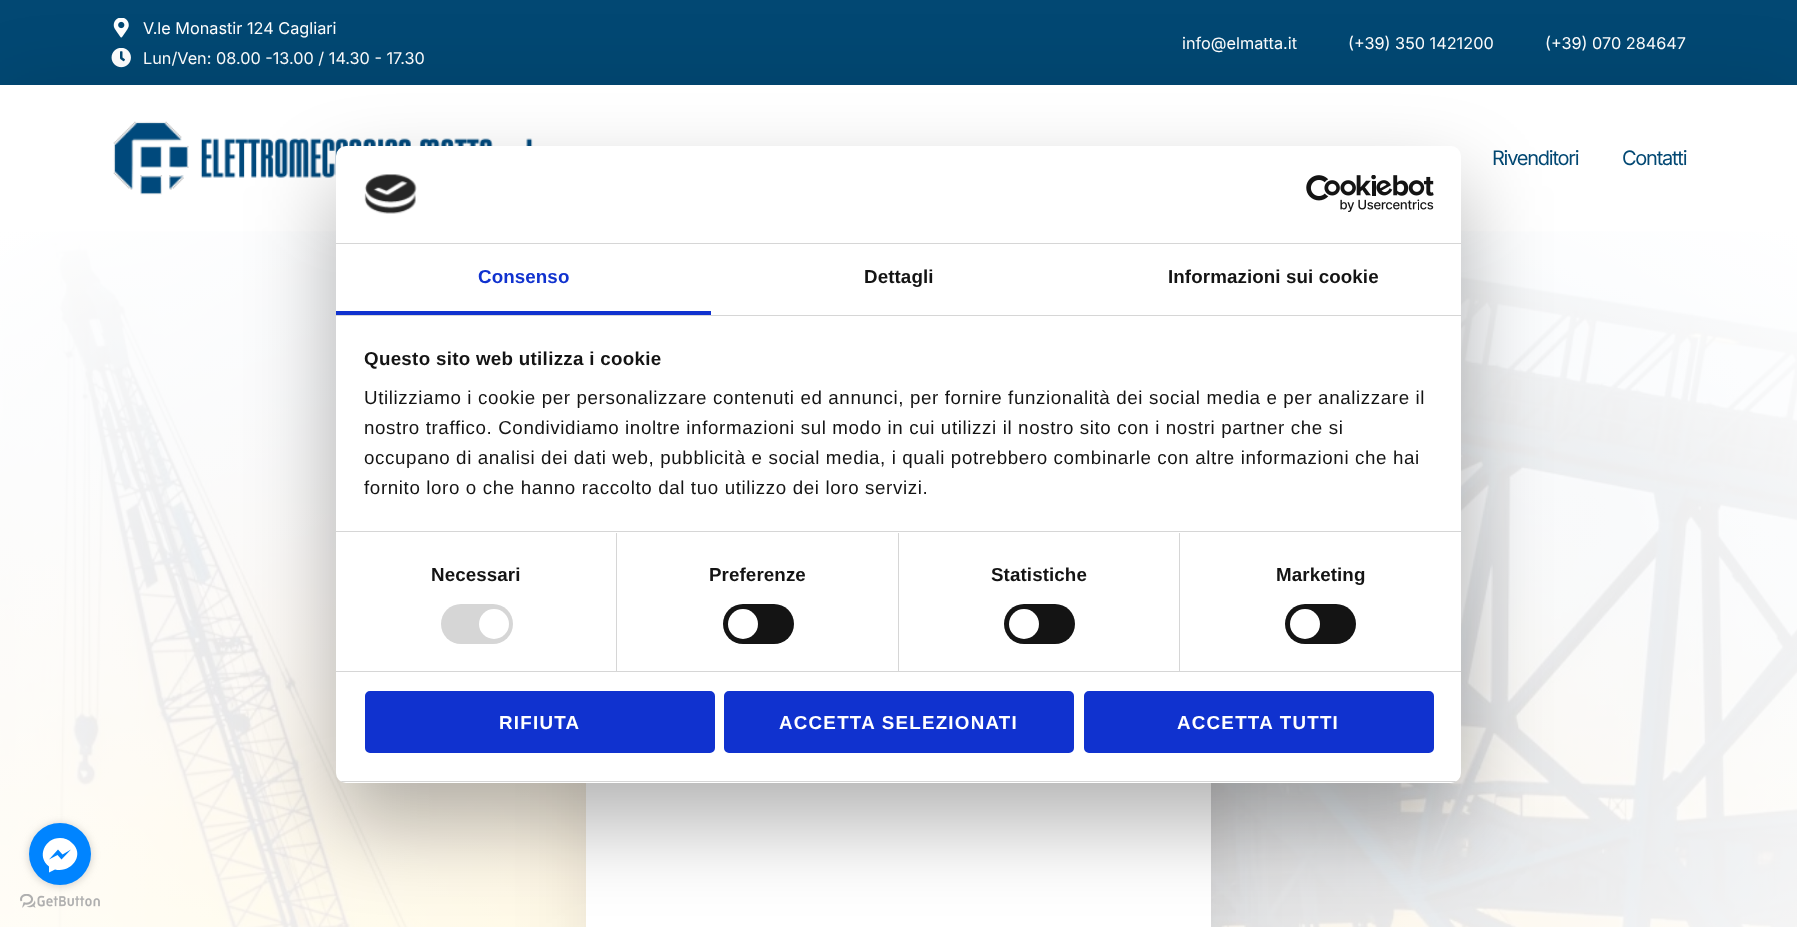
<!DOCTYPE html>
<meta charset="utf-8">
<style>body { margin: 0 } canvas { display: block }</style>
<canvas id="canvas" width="1797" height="927"></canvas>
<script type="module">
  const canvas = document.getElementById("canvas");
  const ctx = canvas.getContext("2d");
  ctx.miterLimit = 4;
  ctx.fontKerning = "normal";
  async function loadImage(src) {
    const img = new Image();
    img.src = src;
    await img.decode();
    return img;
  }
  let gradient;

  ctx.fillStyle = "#ffffff";
  ctx.fillRect(0, 0, 1797, 927);
  ctx.fillStyle = "#024873";
  ctx.fillRect(0, 0, 1797, 85);
  ctx.drawImage(await loadImage("img1.png"), 113, 18, 16, 20);
  ctx.font = "16.25px Inter";
  ctx.fillStyle = "#ffffff";
  ctx.fillText("V.le Monastir 124 Cagliari", 143, 34);
  ctx.drawImage(await loadImage("img2.png"), 111, 48, 20, 20);
  ctx.fillText("Lun/Ven: 08.00 -13.00 / 14.30 - 17.30", 143, 64);
  ctx.fillText("info@elmatta.it", 1182, 49);
  ctx.fillText("(+39) 350 1421200", 1348, 49);
  ctx.fillText("(+39) 070 284647", 1545, 49);
  ctx.save();
  ctx.beginPath();
  ctx.moveTo(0, 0);
  ctx.lineTo(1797, 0);
  ctx.lineTo(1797, 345);
  ctx.lineTo(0, 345);
  ctx.closePath();
  ctx.moveTo(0, 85);
  ctx.lineTo(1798, 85);
  ctx.lineTo(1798, 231);
  ctx.lineTo(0, 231);
  ctx.closePath();
  ctx.clip("evenodd");
  ctx.fillStyle = "rgba(0, 0, 0, 0.1)";
  ctx.filter = "blur(37.5px)";
  ctx.beginPath();
  ctx.rect(0, 85, 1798, 146);
  ctx.fill();
  ctx.filter = "none";
  ctx.restore();
  ctx.drawImage(await loadImage("img3.png"), 113, 121, 420, 74);
  ctx.letterSpacing = "-1.25px";
  ctx.font = "20px Inter";
  ctx.fillStyle = "#024873";
  ctx.fillText("Rivenditori", 1492, 165);
  ctx.fillText("Contatti", 1622, 165);
  ctx.drawImage(await loadImage("img4.png"), 0, 231, 1797, 696);
  gradient = ctx.createRadialGradient(899, 1344.18, 0, 899, 1344.18, 1271);
  gradient.addColorStop(0, "rgba(255, 255, 255, 0.8)");
  gradient.addColorStop(1, "#ffffff");
  ctx.fillStyle = gradient;
  ctx.beginPath();
  ctx.rect(0, 231, 1797, 696);
  ctx.save();
  ctx.clip();
  ctx.scale(1, 660 / 1271);
  ctx.fillRect(0, 0, 1797, 1786);
  ctx.restore();
  ctx.fillStyle = "rgba(0, 0, 0, 0.1)";
  ctx.filter = "blur(37.5px)";
  ctx.beginPath();
  ctx.rect(586, 431, 625, 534);
  ctx.fill();
  ctx.filter = "none";
  ctx.fillStyle = "#ffffff";
  ctx.fillRect(586, 783, 625, 144);
  ctx.fillStyle = "rgba(0, 0, 0, 0.3)";
  ctx.filter = "blur(42.5px)";
  ctx.beginPath();
  ctx.roundRect(336, 186, 1125, 637, 10);
  ctx.fill();
  ctx.filter = "none";
  ctx.fillStyle = "#ffffff";
  ctx.beginPath();
  ctx.roundRect(336, 146, 1125, 637, 10);
  ctx.fill();
  ctx.fillStyle = "#d6d6d6";
  ctx.fillRect(336, 243, 1125, 1);
  ctx.drawImage(await loadImage("img5.png"), 364, 174, 53, 40);
  ctx.drawImage(await loadImage("img6.png"), 1306, 175, 128, 37);
  ctx.fillRect(336, 315, 1125, 1);
  ctx.fillStyle = "#1032cf";
  ctx.fillRect(336, 311, 375, 4);
  ctx.letterSpacing = "0.1px";
  ctx.font = "bold 18.75px Liberation Sans";
  ctx.fillText("Consenso", 478, 283);
  ctx.fillStyle = "#141414";
  ctx.fillText("Dettagli", 864, 283);
  ctx.fillText("Informazioni sui cookie", 1168, 283);
  ctx.fillStyle = "#d6d6d6";
  ctx.fillRect(336, 531, 1125, 1);
  ctx.letterSpacing = "0.3px";
  ctx.fillStyle = "#141414";
  ctx.fillText("Questo sito web utilizza i cookie", 364, 365);
  ctx.letterSpacing = "0.62px";
  ctx.font = "18.75px Liberation Sans";
  ctx.fillText("Utilizziamo i cookie per personalizzare contenuti ed annunci, per fornire funzionalità dei social media e per analizzare il", 364, 404);
  ctx.fillText("nostro traffico. Condividiamo inoltre informazioni sul modo in cui utilizzi il nostro sito con i nostri partner che si", 364, 434);
  ctx.fillText("occupano di analisi dei dati web, pubblicità e social media, i quali potrebbero combinarle con altre informazioni che hai", 364, 464);
  ctx.fillText("fornito loro o che hanno raccolto dal tuo utilizzo dei loro servizi.", 364, 494);
  ctx.fillStyle = "#d6d6d6";
  ctx.fillRect(336, 671, 1125, 1);
  ctx.fillRect(616, 533, 1, 138);
  ctx.letterSpacing = "0.1px";
  ctx.font = "bold 18.75px Liberation Sans";
  ctx.fillStyle = "#141414";
  ctx.fillText("Necessari", 431, 581);
  ctx.fillStyle = "#d6d6d6";
  ctx.beginPath();
  ctx.roundRect(441, 604, 72, 40, 20);
  ctx.fill();
  ctx.fillStyle = "#ffffff";
  ctx.beginPath();
  ctx.arc(494, 624, 15, 0, Math.PI * 2);
  ctx.fill();
  ctx.fillStyle = "#d6d6d6";
  ctx.fillRect(898, 533, 1, 138);
  ctx.fillStyle = "#141414";
  ctx.fillText("Preferenze", 709, 581);
  ctx.beginPath();
  ctx.roundRect(723, 604, 71, 40, 20);
  ctx.fill();
  ctx.fillStyle = "#ffffff";
  ctx.beginPath();
  ctx.arc(743, 624, 15, 0, Math.PI * 2);
  ctx.fill();
  ctx.fillStyle = "#d6d6d6";
  ctx.fillRect(1179, 533, 1, 138);
  ctx.fillStyle = "#141414";
  ctx.fillText("Statistiche", 991, 581);
  ctx.beginPath();
  ctx.roundRect(1004, 604, 71, 40, 20);
  ctx.fill();
  ctx.fillStyle = "#ffffff";
  ctx.beginPath();
  ctx.arc(1024, 624, 15, 0, Math.PI * 2);
  ctx.fill();
  ctx.fillStyle = "#141414";
  ctx.fillText("Marketing", 1276, 581);
  ctx.beginPath();
  ctx.roundRect(1285, 604, 71, 40, 20);
  ctx.fill();
  ctx.fillStyle = "#ffffff";
  ctx.beginPath();
  ctx.arc(1305, 624, 15, 0, Math.PI * 2);
  ctx.fill();
  ctx.save();
  ctx.beginPath();
  ctx.roundRect(336, 146, 1125, 637, 10);
  ctx.clip();
  ctx.fillStyle = "#d6d6d6";
  ctx.fillRect(336, 781, 1125, 1);
  ctx.restore();
  ctx.fillStyle = "#1032cf";
  ctx.beginPath();
  ctx.roundRect(366.5, 692.5, 347, 59, 3.5);
  ctx.fill();
  ctx.strokeStyle = "#1032cf";
  ctx.lineWidth = 3;
  ctx.stroke();
  ctx.letterSpacing = "1.25px";
  ctx.fillStyle = "#ffffff";
  ctx.fillText("RIFIUTA", 499, 729);
  ctx.fillStyle = "#1032cf";
  ctx.beginPath();
  ctx.roundRect(725.5, 692.5, 347, 59, 3.5);
  ctx.fill();
  ctx.stroke();
  ctx.fillStyle = "#ffffff";
  ctx.fillText("ACCETTA SELEZIONATI", 779, 729);
  ctx.fillStyle = "#1032cf";
  ctx.beginPath();
  ctx.roundRect(1085.5, 692.5, 347, 59, 3.5);
  ctx.fill();
  ctx.stroke();
  ctx.fillStyle = "#ffffff";
  ctx.fillText("ACCETTA TUTTI", 1177, 729);
  ctx.drawImage(await loadImage("img7.png"), 20, 894, 80, 14);
  ctx.fillStyle = "rgba(136, 136, 136, 0.4)";
  ctx.filter = "blur(4.5px)";
  ctx.beginPath();
  ctx.roundRect(29, 824, 62, 62, 31);
  ctx.fill();
  ctx.filter = "none";
  ctx.fillStyle = "#0084ff";
  ctx.beginPath();
  ctx.arc(60, 854, 31, 0, Math.PI * 2);
  ctx.fill();
  ctx.fillStyle = "#ffffff";
  ctx.beginPath();
  ctx.moveTo(60, 838);
  ctx.bezierCurveTo(44.5, 838, 36.5, 857, 49, 866.5);
  ctx.lineTo(49, 872.5);
  ctx.lineTo(55, 869.5);
  ctx.bezierCurveTo(71, 873.5, 85.5, 855, 72, 843);
  ctx.bezierCurveTo(69, 839.5, 64.5, 838, 60, 838);
  ctx.closePath();
  ctx.moveTo(61.5, 859.5);
  ctx.lineTo(57.5, 855);
  ctx.lineTo(49, 859.5);
  ctx.lineTo(58, 849.5);
  ctx.lineTo(62.5, 854.5);
  ctx.lineTo(71, 849.5);
  ctx.closePath();
  ctx.fill();
</script>
